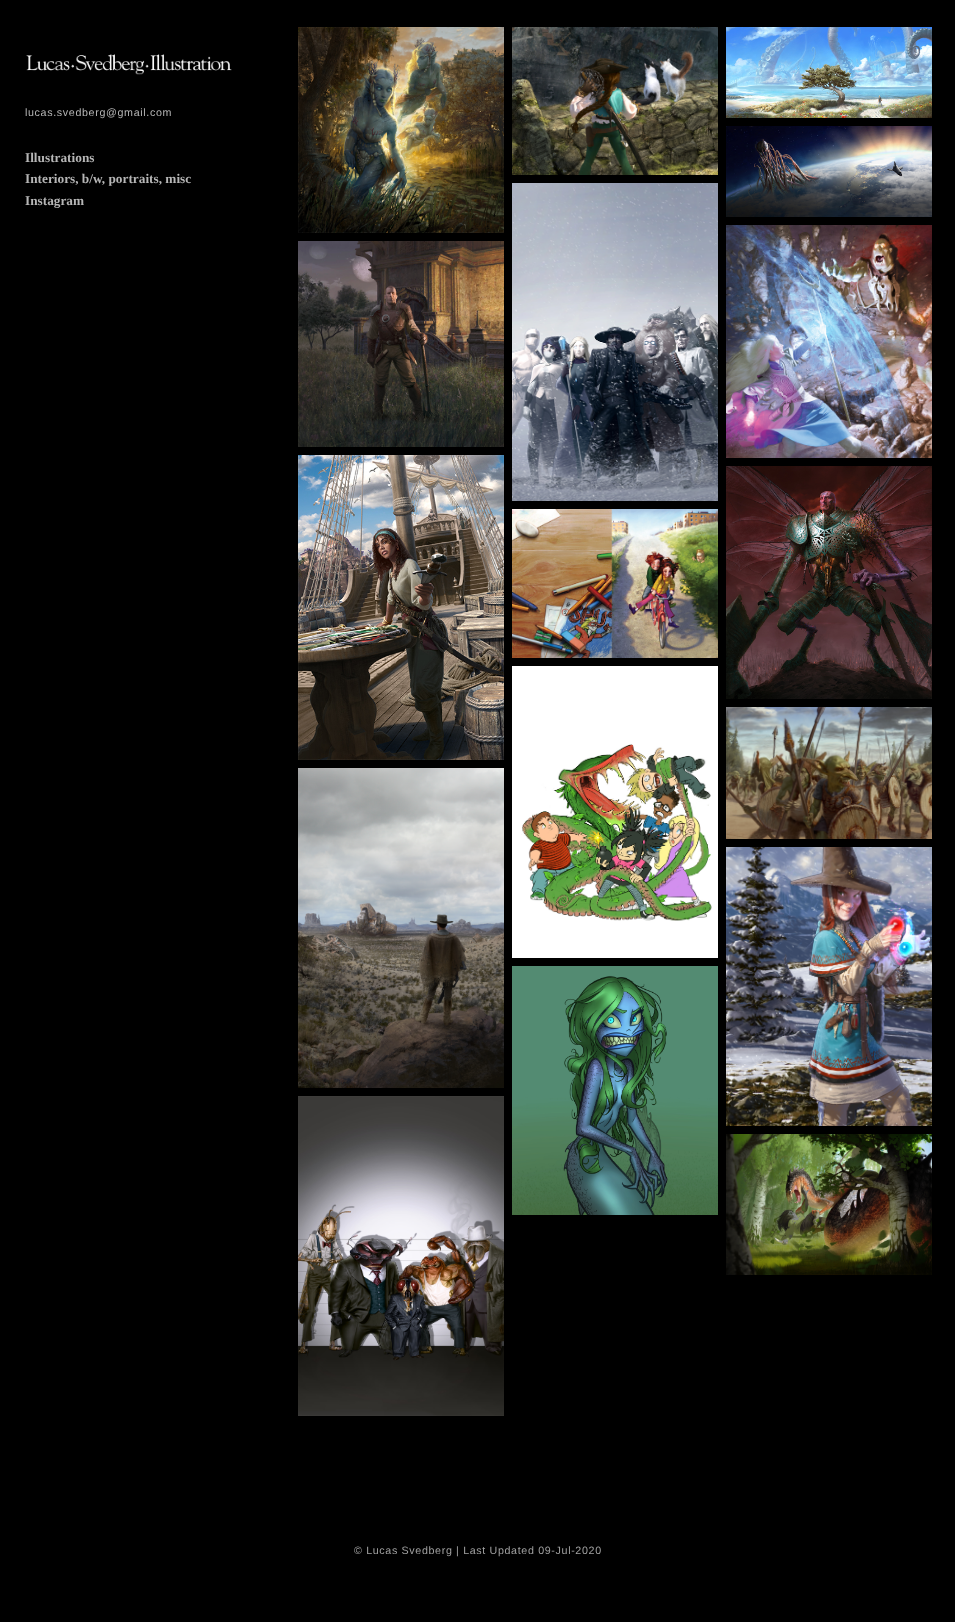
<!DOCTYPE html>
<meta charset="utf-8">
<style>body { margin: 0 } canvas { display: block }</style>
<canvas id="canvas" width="955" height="1622"></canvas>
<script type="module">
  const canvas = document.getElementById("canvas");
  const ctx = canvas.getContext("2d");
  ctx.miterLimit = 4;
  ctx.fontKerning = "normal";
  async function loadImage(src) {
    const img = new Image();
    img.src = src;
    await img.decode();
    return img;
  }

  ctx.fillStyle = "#000000";
  ctx.fillRect(0, 0, 955, 1622);
  ctx.drawImage(await loadImage("img1.png"), 26, 54, 206, 21);
  ctx.letterSpacing = "0.65px";
  ctx.font = "10.7px Liberation Sans";
  ctx.fillStyle = "#b6b6b6";
  ctx.fillText("lucas.svedberg@gmail.com", 25, 116);
  ctx.letterSpacing = "0px";
  ctx.font = "bold 13.3px Liberation Serif";
  ctx.fillText("Illustrations", 25, 162);
  ctx.fillText("Interiors, b/w, portraits, misc", 25, 183);
  ctx.fillText("Instagram", 25, 205);
  ctx.drawImage(await loadImage("img2.png"), 298, 27, 206, 206);
  ctx.drawImage(await loadImage("img3.png"), 298, 241, 206, 206);
  ctx.drawImage(await loadImage("img4.png"), 298, 455, 206, 305);
  ctx.drawImage(await loadImage("img5.png"), 298, 768, 206, 320);
  ctx.drawImage(await loadImage("img6.png"), 298, 1096, 206, 320);
  ctx.drawImage(await loadImage("img7.png"), 512, 27, 206, 148);
  ctx.drawImage(await loadImage("img8.png"), 512, 183, 206, 318);
  ctx.drawImage(await loadImage("img9.png"), 512, 509, 206, 149);
  ctx.fillStyle = "#ffffff";
  ctx.fillRect(512, 666, 206, 292);
  ctx.drawImage(await loadImage("img10.png"), 521, 744, 191, 177);
  ctx.drawImage(await loadImage("img11.png"), 512, 966, 206, 249);
  ctx.drawImage(await loadImage("img12.png"), 726, 27, 206, 91);
  ctx.drawImage(await loadImage("img13.png"), 726, 126, 206, 91);
  ctx.drawImage(await loadImage("img14.png"), 726, 225, 206, 233);
  ctx.drawImage(await loadImage("img15.png"), 726, 466, 206, 233);
  ctx.drawImage(await loadImage("img16.png"), 726, 707, 206, 132);
  ctx.drawImage(await loadImage("img17.png"), 726, 847, 206, 279);
  ctx.drawImage(await loadImage("img18.png"), 726, 1134, 206, 141);
  ctx.letterSpacing = "0.65px";
  ctx.font = "10.7px Liberation Sans";
  ctx.fillStyle = "#a1a1a1";
  ctx.fillText("© Lucas Svedberg | Last Updated 09-Jul-2020", 354, 1554);
</script>
